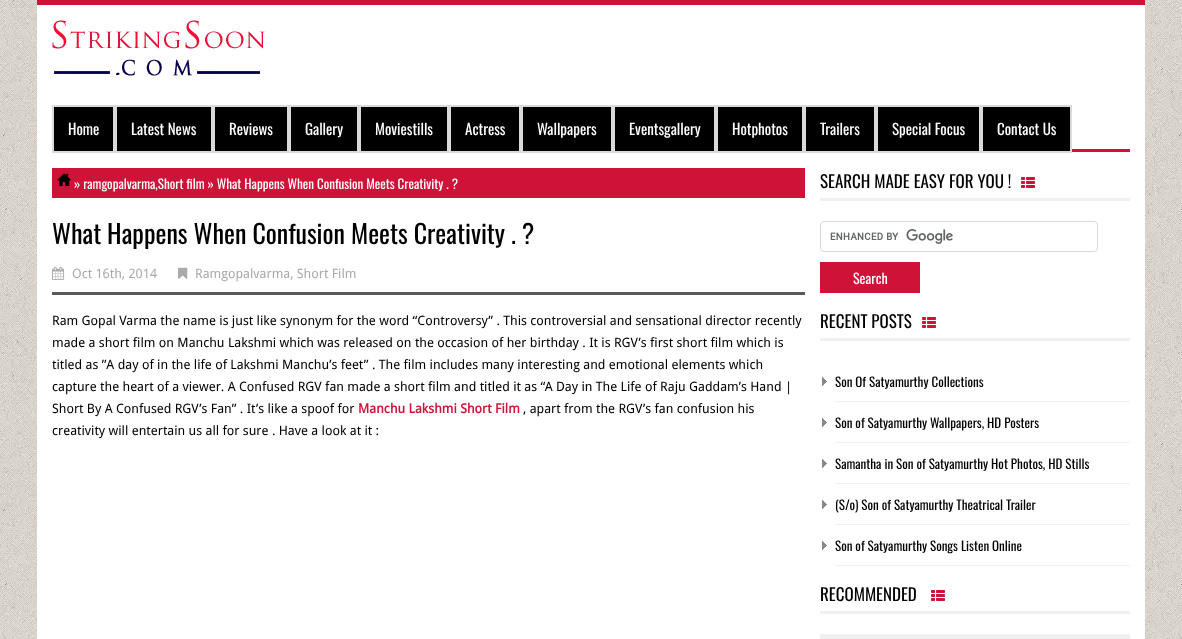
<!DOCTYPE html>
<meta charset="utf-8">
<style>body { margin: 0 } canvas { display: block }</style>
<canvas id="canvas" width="1182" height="639"></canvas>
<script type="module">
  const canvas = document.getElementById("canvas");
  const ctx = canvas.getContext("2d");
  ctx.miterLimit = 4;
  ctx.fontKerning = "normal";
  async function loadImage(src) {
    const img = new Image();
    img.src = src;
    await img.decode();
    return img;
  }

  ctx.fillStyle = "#ffffff";
  ctx.fillRect(0, 0, 1182, 639);
  ctx.drawImage(await loadImage("img1.png"), 0, 0, 1182, 639);
  ctx.fillRect(37, 5, 1108, 634);
  ctx.fillStyle = "#cf1338";
  ctx.fillRect(37, 0, 1108, 5);
  ctx.drawImage(await loadImage("img2.png"), 52, 20, 213, 56);
  ctx.fillRect(1072, 149, 58, 3);
  ctx.fillStyle = "#000000";
  ctx.beginPath();
  ctx.rect(53, 106, 61, 46);
  ctx.fill();
  ctx.strokeStyle = "#dadada";
  ctx.lineWidth = 2;
  ctx.stroke();
  ctx.font = "15px Oswald";
  ctx.fillStyle = "#ffffff";
  ctx.fillText("Home", 68, 135);
  ctx.fillStyle = "#000000";
  ctx.beginPath();
  ctx.rect(116, 106, 96, 46);
  ctx.fill();
  ctx.stroke();
  ctx.fillStyle = "#ffffff";
  ctx.fillText("Latest News", 131, 135);
  ctx.fillStyle = "#000000";
  ctx.beginPath();
  ctx.rect(214, 106, 74, 46);
  ctx.fill();
  ctx.stroke();
  ctx.fillStyle = "#ffffff";
  ctx.fillText("Reviews", 229, 135);
  ctx.fillStyle = "#000000";
  ctx.beginPath();
  ctx.rect(290, 106, 68, 46);
  ctx.fill();
  ctx.stroke();
  ctx.fillStyle = "#ffffff";
  ctx.fillText("Gallery", 305, 135);
  ctx.fillStyle = "#000000";
  ctx.beginPath();
  ctx.rect(360, 106, 88, 46);
  ctx.fill();
  ctx.stroke();
  ctx.fillStyle = "#ffffff";
  ctx.fillText("Moviestills", 375, 135);
  ctx.fillStyle = "#000000";
  ctx.beginPath();
  ctx.rect(450, 106, 70, 46);
  ctx.fill();
  ctx.stroke();
  ctx.fillStyle = "#ffffff";
  ctx.fillText("Actress", 465, 135);
  ctx.fillStyle = "#000000";
  ctx.beginPath();
  ctx.rect(522, 106, 90, 46);
  ctx.fill();
  ctx.stroke();
  ctx.fillStyle = "#ffffff";
  ctx.fillText("Wallpapers", 537, 135);
  ctx.fillStyle = "#000000";
  ctx.beginPath();
  ctx.rect(614, 106, 101, 46);
  ctx.fill();
  ctx.stroke();
  ctx.fillStyle = "#ffffff";
  ctx.fillText("Eventsgallery", 629, 135);
  ctx.fillStyle = "#000000";
  ctx.beginPath();
  ctx.rect(717, 106, 86, 46);
  ctx.fill();
  ctx.stroke();
  ctx.fillStyle = "#ffffff";
  ctx.fillText("Hotphotos", 732, 135);
  ctx.fillStyle = "#000000";
  ctx.beginPath();
  ctx.rect(805, 106, 70, 46);
  ctx.fill();
  ctx.stroke();
  ctx.fillStyle = "#ffffff";
  ctx.fillText("Trailers", 820, 135);
  ctx.fillStyle = "#000000";
  ctx.beginPath();
  ctx.rect(877, 106, 103, 46);
  ctx.fill();
  ctx.stroke();
  ctx.fillStyle = "#ffffff";
  ctx.fillText("Special Focus", 892, 135);
  ctx.fillStyle = "#000000";
  ctx.beginPath();
  ctx.rect(982, 106, 89, 46);
  ctx.fill();
  ctx.stroke();
  ctx.fillStyle = "#ffffff";
  ctx.fillText("Contact Us", 997, 135);
  ctx.fillStyle = "#cf1338";
  ctx.fillRect(52, 168, 753, 30);
  ctx.drawImage(await loadImage("img3.png"), 57, 173, 14, 13);
  ctx.font = "13px Oswald";
  ctx.fillStyle = "#ffffff";
  ctx.fillText("» ramgopalvarma,Short film » What Happens When Confusion Meets Creativity . ?", 74, 189);
  ctx.font = "26px Oswald";
  ctx.fillStyle = "#000000";
  ctx.fillText("What Happens When Confusion Meets Creativity . ?", 52, 244);
  ctx.fillStyle = "#595959";
  ctx.fillRect(52, 292, 753, 3);
  ctx.drawImage(await loadImage("img4.png"), 52, 266, 13, 14);
  ctx.font = "13px Droid Sans";
  ctx.fillStyle = "#aaaaaa";
  ctx.fillText("Oct 16th, 2014", 72, 278);
  ctx.drawImage(await loadImage("img5.png"), 178, 267, 10, 12);
  ctx.fillText("Ramgopalvarma, Short Film", 195, 278);
  ctx.fillStyle = "#000000";
  ctx.fillText("Ram Gopal Varma the name is just like synonym for the word “Controversy” . This controversial and sensational director recently", 52, 325);
  ctx.fillText("made a short film on Manchu Lakshmi which was released on the occasion of her birthday . It is RGV’s first short film which is", 52, 347);
  ctx.fillText("titled as ”A day of in the life of Lakshmi Manchu’s feet” . The film includes many interesting and emotional elements which", 52, 369);
  ctx.fillText("capture the heart of a viewer. A Confused RGV fan made a short film and titled it as “A Day in The Life of Raju Gaddam’s Hand |", 52, 391);
  ctx.fillText("Short By A Confused RGV’s Fan” . It’s like a spoof for", 52, 413);
  ctx.font = "bold 13px Droid Sans";
  ctx.fillStyle = "#cf1338";
  ctx.fillText("Manchu Lakshmi Short Film", 358, 413);
  ctx.font = "13px Droid Sans";
  ctx.fillStyle = "#000000";
  ctx.fillText(", apart from the RGV’s fan confusion his", 523, 413);
  ctx.fillText("creativity will entertain us all for sure . Have a look at it :", 52, 435);
  ctx.font = "17px Oswald";
  ctx.fillText("SEARCH MADE EASY FOR YOU !", 820, 188);
  ctx.drawImage(await loadImage("img6.png"), 1021, 177, 14, 11);
  ctx.fillStyle = "#f0f0f0";
  ctx.fillRect(820, 198, 310, 3);
  ctx.drawImage(await loadImage("img7.png"), 830, 229, 123, 15);
  ctx.beginPath();
  ctx.roundRect(820.5, 221.5, 277, 30, 3.5);
  ctx.lineWidth = 1;
  ctx.stroke();
  ctx.fillStyle = "#cf1338";
  ctx.fillRect(820, 262, 100, 31);
  ctx.font = "14px Oswald";
  ctx.fillStyle = "#ffffff";
  ctx.fillText("Search", 853, 284);
  ctx.font = "17px Oswald";
  ctx.fillStyle = "#000000";
  ctx.fillText("RECENT POSTS", 820, 328);
  ctx.drawImage(await loadImage("img6.png"), 922, 317, 14, 11);
  ctx.fillStyle = "#f0f0f0";
  ctx.fillRect(820, 338, 310, 3);
  ctx.fillRect(835, 401, 295, 1);
  ctx.drawImage(await loadImage("img8.png"), 822, 377, 5, 9);
  ctx.font = "13px Oswald";
  ctx.fillStyle = "#000000";
  ctx.fillText("Son Of Satyamurthy Collections", 835, 387);
  ctx.fillStyle = "#f0f0f0";
  ctx.fillRect(835, 442, 295, 1);
  ctx.drawImage(await loadImage("img8.png"), 822, 418, 5, 9);
  ctx.fillStyle = "#000000";
  ctx.fillText("Son of Satyamurthy Wallpapers, HD Posters", 835, 428);
  ctx.fillStyle = "#f0f0f0";
  ctx.fillRect(835, 483, 295, 1);
  ctx.drawImage(await loadImage("img8.png"), 822, 459, 5, 9);
  ctx.fillStyle = "#000000";
  ctx.fillText("Samantha in Son of Satyamurthy Hot Photos, HD Stills", 835, 469);
  ctx.fillStyle = "#f0f0f0";
  ctx.fillRect(835, 524, 295, 1);
  ctx.drawImage(await loadImage("img8.png"), 822, 500, 5, 9);
  ctx.fillStyle = "#000000";
  ctx.fillText("(S/o) Son of Satyamurthy Theatrical Trailer", 835, 510);
  ctx.fillStyle = "#f0f0f0";
  ctx.fillRect(835, 565, 295, 1);
  ctx.drawImage(await loadImage("img8.png"), 822, 541, 5, 9);
  ctx.fillStyle = "#000000";
  ctx.fillText("Son of Satyamurthy Songs Listen Online", 835, 551);
  ctx.font = "17px Oswald";
  ctx.fillText("RECOMMENDED", 820, 601);
  ctx.drawImage(await loadImage("img6.png"), 931, 590, 14, 11);
  ctx.fillStyle = "#f0f0f0";
  ctx.fillRect(820, 611, 310, 3);
  ctx.fillRect(820, 634, 310, 5);
</script>
